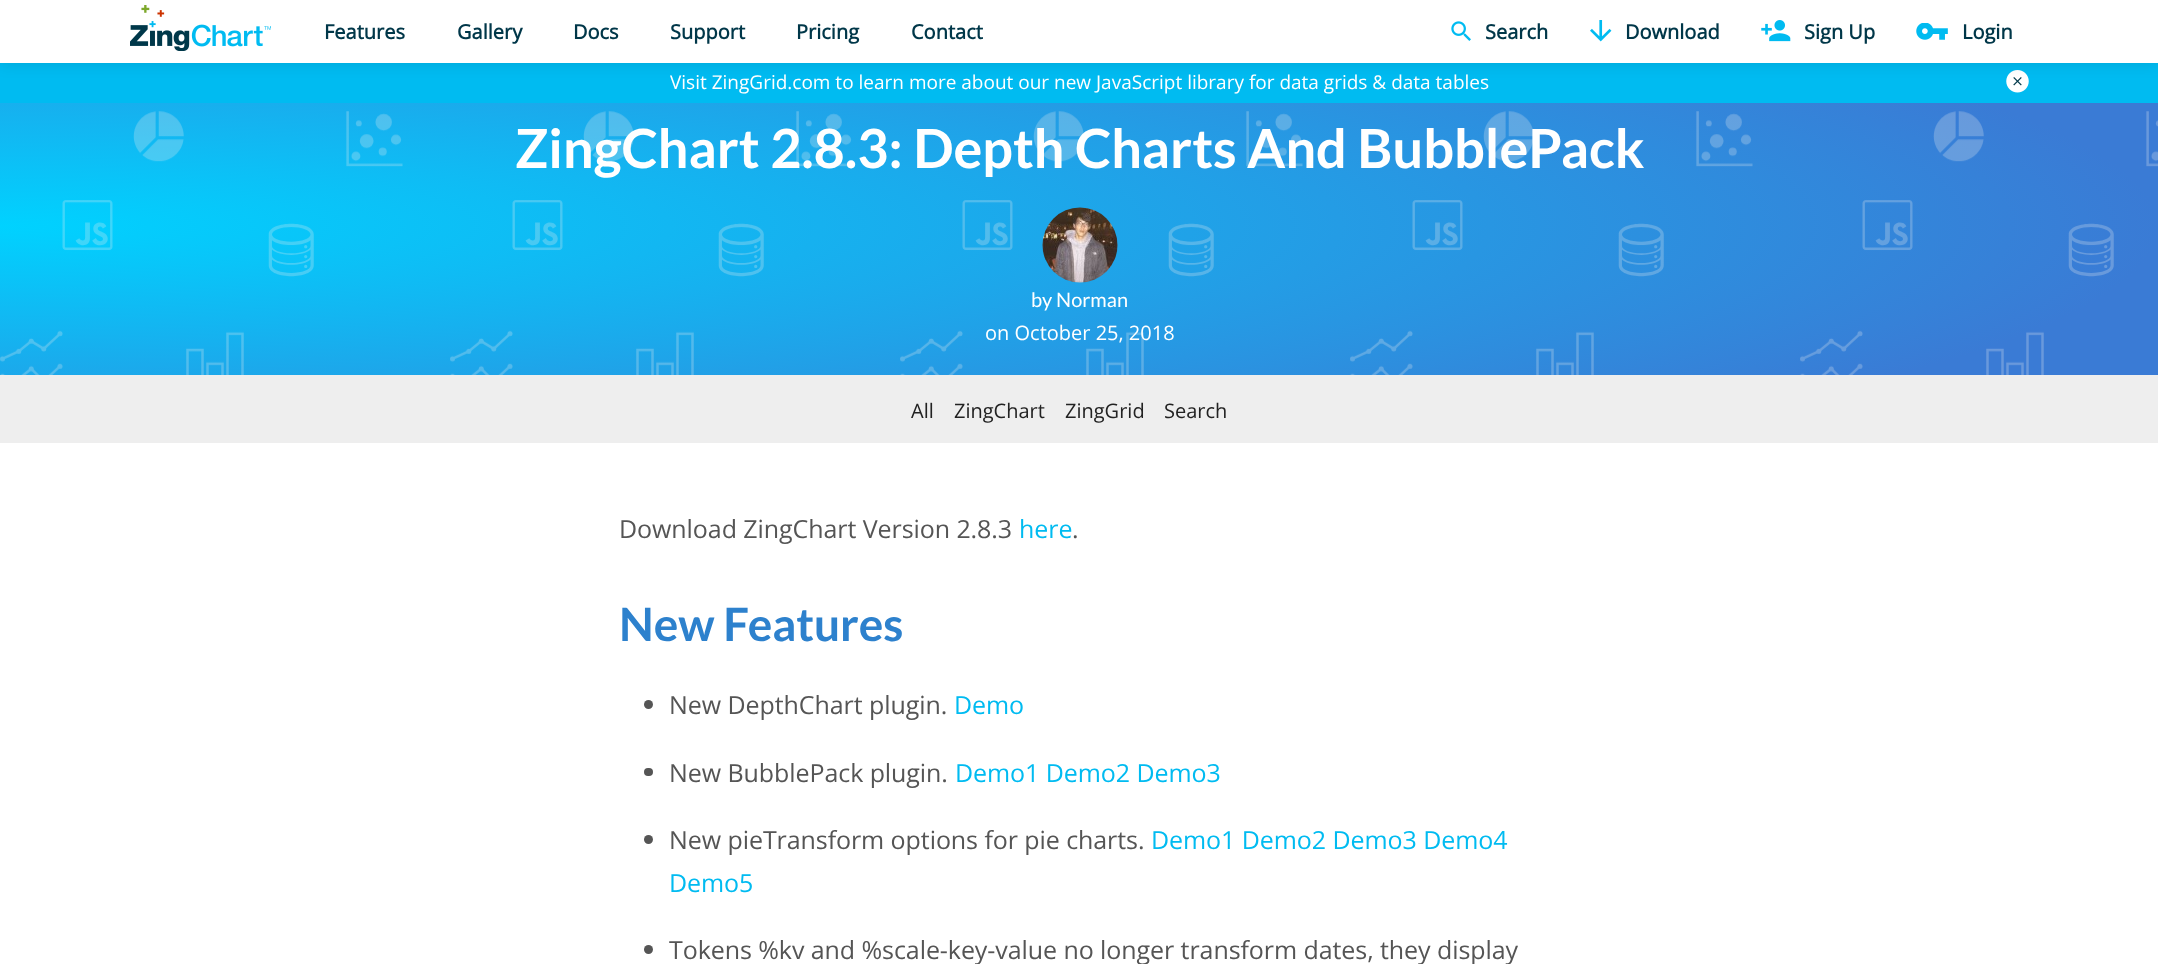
<!DOCTYPE html>
<meta charset="utf-8">
<style>body { margin: 0 } canvas { display: block }</style>
<canvas id="canvas" width="2158" height="964"></canvas>
<script type="module">
  const canvas = document.getElementById("canvas");
  const ctx = canvas.getContext("2d");
  ctx.miterLimit = 4;
  ctx.fontKerning = "normal";
  async function loadImage(src) {
    const img = new Image();
    img.src = src;
    await img.decode();
    return img;
  }

  ctx.fillStyle = "#ffffff";
  ctx.fillRect(0, 0, 2158, 964);
  ctx.fillStyle = "#00bbf1";
  ctx.fillRect(0, 63, 2158, 40);
  ctx.drawImage(await loadImage("img6.png"), 2006, 70, 23, 23);
  ctx.fillStyle = "rgba(0, 0, 0, 0.1)";
  ctx.filter = "blur(7.5px)";
  ctx.beginPath();
  ctx.rect(0, -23, 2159, 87);
  ctx.fill();
  ctx.filter = "none";
  ctx.fillStyle = "#ffffff";
  ctx.fillRect(0, 0, 2158, 63);
  ctx.drawImage(await loadImage("img1.png"), 130, 5, 141, 46);
  ctx.font = "bold 20px Open Sans";
  ctx.fillStyle = "#003749";
  ctx.fillText("Features", 324, 39);
  ctx.fillText("Gallery", 457, 39);
  ctx.fillText("Docs", 573, 39);
  ctx.fillText("Support", 670, 39);
  ctx.fillText("Pricing", 796, 39);
  ctx.fillText("Contact", 911, 39);
  ctx.drawImage(await loadImage("img2.png"), 1451, 21, 20, 20);
  ctx.fillText("Search", 1485, 39);
  ctx.drawImage(await loadImage("img3.png"), 1590, 20, 22, 22);
  ctx.fillText("Download", 1625, 39);
  ctx.drawImage(await loadImage("img4.png"), 1761, 20, 30, 22);
  ctx.fillText("Sign Up", 1804, 39);
  ctx.drawImage(await loadImage("img5.png"), 1916, 23, 32, 17);
  ctx.fillText("Login", 1962, 39);
  ctx.font = "19px Open Sans";
  ctx.fillStyle = "#ffffff";
  ctx.fillText("Visit ZingGrid.com to learn more about our new JavaScript library for data grids & data tables", 670, 89);
  ctx.drawImage(await loadImage("img7.png"), 0, 103, 2158, 272);
  ctx.font = "bold 54px Lato";
  ctx.fillText("ZingChart 2.8.3: Depth Charts And BubblePack", 515, 168);
  ctx.drawImage(await loadImage("img8.png"), 1042, 207, 76, 76);
  ctx.font = "20px Lato";
  ctx.fillText("by Norman", 1031, 307);
  ctx.font = "20px Open Sans";
  ctx.fillText("on October 25, 2018", 985, 340);
  ctx.fillStyle = "#eeeeee";
  ctx.fillRect(0, 375, 2158, 68);
  ctx.fillStyle = "#222222";
  ctx.fillText("All", 911, 418);
  ctx.fillText("ZingChart", 954, 418);
  ctx.fillText("ZingGrid", 1065, 418);
  ctx.fillText("Search", 1164, 418);
  ctx.letterSpacing = "-0.07px";
  ctx.font = "25px Open Sans";
  ctx.fillStyle = "#555555";
  ctx.fillText("Download ZingChart Version 2.8.3", 619, 538);
  ctx.fillStyle = "#00bbf1";
  ctx.fillText("here", 1019, 538);
  ctx.fillStyle = "#555555";
  ctx.fillText(".", 1072, 538);
  ctx.font = "bold 46px Lato";
  ctx.fillStyle = "#2d81cd";
  ctx.fillText("New Features", 619, 641);
  ctx.fillStyle = "#555555";
  ctx.beginPath();
  ctx.arc(648.5, 704.5, 4.5, 0, Math.PI * 2);
  ctx.fill();
  ctx.font = "25px Open Sans";
  ctx.fillText("New DepthChart plugin.", 669, 714);
  ctx.fillStyle = "#00bbf1";
  ctx.fillText("Demo", 954, 714);
  ctx.fillStyle = "#555555";
  ctx.beginPath();
  ctx.roundRect(644, 768, 9, 8, 4);
  ctx.fill();
  ctx.fillText("New BubblePack plugin.", 669, 782);
  ctx.fillStyle = "#00bbf1";
  ctx.fillText("Demo1 Demo2 Demo3", 955, 782);
  ctx.fillStyle = "#555555";
  ctx.beginPath();
  ctx.arc(648.5, 839.5, 4.5, 0, Math.PI * 2);
  ctx.fill();
  ctx.fillText("New pieTransform options for pie charts.", 669, 849);
  ctx.fillStyle = "#00bbf1";
  ctx.fillText("Demo1 Demo2 Demo3 Demo4", 1151, 849);
  ctx.fillText("Demo5", 669, 892);
  ctx.fillStyle = "#555555";
  ctx.beginPath();
  ctx.arc(648.5, 949.5, 4.5, 0, Math.PI * 2);
  ctx.fill();
  ctx.fillText("Tokens %kv and %scale-key-value no longer transform dates, they display", 669, 959);
</script>
